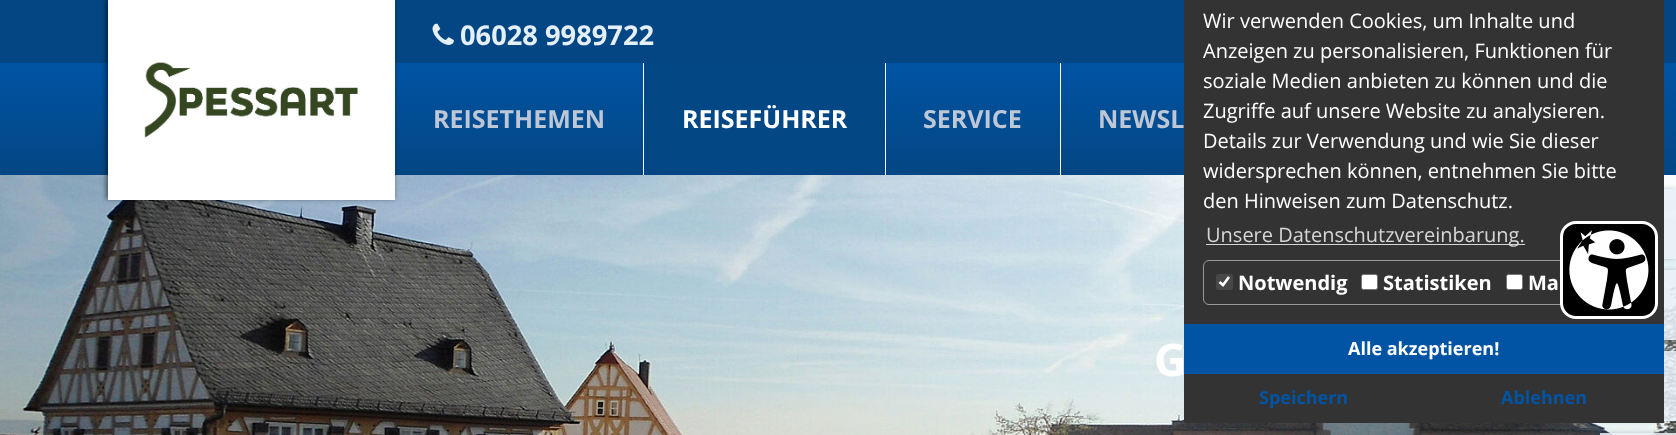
<!DOCTYPE html>
<meta charset="utf-8">
<style>body { margin: 0 } canvas { display: block }</style>
<canvas id="canvas" width="1676" height="435"></canvas>
<script type="module">
  const canvas = document.getElementById("canvas");
  const ctx = canvas.getContext("2d");
  ctx.miterLimit = 4;
  ctx.fontKerning = "normal";
  async function loadImage(src) {
    const img = new Image();
    img.src = src;
    await img.decode();
    return img;
  }
  let gradient;

  ctx.fillStyle = "#ffffff";
  ctx.fillRect(0, 0, 1676, 435);
  ctx.fillStyle = "#044684";
  ctx.fillRect(0, 0, 1676, 63);
  ctx.drawImage(await loadImage("img1.png"), 432, 23, 22, 22);
  ctx.font = "bold 27.25px Open Sans";
  ctx.fillStyle = "#e5eff8";
  ctx.fillText("06028 9989722", 460, 45);
  gradient = ctx.createLinearGradient(838, 62, 838, 175);
  gradient.addColorStop(0, "#0054a3");
  gradient.addColorStop(1, "#044683");
  ctx.fillStyle = gradient;
  ctx.fillRect(0, 63, 1676, 112);
  ctx.drawImage(await loadImage("img4.png"), 0, 175, 1676, 260);
  ctx.save();
  ctx.beginPath();
  ctx.moveTo(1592, 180);
  ctx.lineTo(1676, 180);
  ctx.lineTo(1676, 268);
  ctx.lineTo(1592, 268);
  ctx.closePath();
  ctx.moveTo(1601, 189);
  ctx.lineTo(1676, 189);
  ctx.lineTo(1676, 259);
  ctx.lineTo(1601, 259);
  ctx.closePath();
  ctx.clip("evenodd");
  ctx.fillStyle = "rgba(0, 0, 0, 0.2)";
  ctx.filter = "blur(2.5px)";
  ctx.beginPath();
  ctx.rect(1601, 189, 75, 70);
  ctx.fill();
  ctx.filter = "none";
  ctx.restore();
  ctx.save();
  ctx.beginPath();
  ctx.moveTo(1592, 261);
  ctx.lineTo(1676, 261);
  ctx.lineTo(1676, 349);
  ctx.lineTo(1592, 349);
  ctx.closePath();
  ctx.moveTo(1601, 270);
  ctx.lineTo(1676, 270);
  ctx.lineTo(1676, 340);
  ctx.lineTo(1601, 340);
  ctx.closePath();
  ctx.clip("evenodd");
  ctx.fillStyle = "rgba(0, 0, 0, 0.2)";
  ctx.filter = "blur(2.5px)";
  ctx.beginPath();
  ctx.rect(1601, 270, 75, 70);
  ctx.fill();
  ctx.filter = "none";
  ctx.restore();
  ctx.save();
  ctx.beginPath();
  ctx.moveTo(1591, 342);
  ctx.lineTo(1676, 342);
  ctx.lineTo(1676, 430);
  ctx.lineTo(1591, 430);
  ctx.closePath();
  ctx.moveTo(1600, 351);
  ctx.lineTo(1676, 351);
  ctx.lineTo(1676, 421);
  ctx.lineTo(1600, 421);
  ctx.closePath();
  ctx.clip("evenodd");
  ctx.fillStyle = "rgba(0, 0, 0, 0.2)";
  ctx.filter = "blur(2.5px)";
  ctx.beginPath();
  ctx.rect(1600, 351, 76, 70);
  ctx.fill();
  ctx.filter = "none";
  ctx.restore();
  ctx.fillStyle = "#333333";
  ctx.fillRect(1184, 0, 480, 423);
  ctx.font = "20px Open Sans";
  ctx.fillStyle = "#ffffff";
  ctx.fillText("Wir verwenden Cookies, um Inhalte und", 1203, 28);
  ctx.fillText("Anzeigen zu personalisieren, Funktionen für", 1203, 58);
  ctx.fillText("soziale Medien anbieten zu können und die", 1203, 88);
  ctx.fillText("Zugriffe auf unsere Website zu analysieren.", 1203, 118);
  ctx.fillText("Details zur Verwendung und wie Sie dieser", 1203, 148);
  ctx.fillText("widersprechen können, entnehmen Sie bitte", 1203, 178);
  ctx.fillText("den Hinweisen zum Datenschutz.", 1203, 208);
  ctx.fillStyle = "#d6d6d6";
  ctx.fillRect(1206, 244, 319, 1);
  ctx.fillText("Unsere Datenschutzvereinbarung.", 1206, 242);
  ctx.beginPath();
  ctx.roundRect(1203.5, 260.5, 441, 44, 5.5);
  ctx.strokeStyle = "#999999";
  ctx.stroke();
  ctx.fillStyle = "#474747";
  ctx.beginPath();
  ctx.roundRect(1216, 274, 17, 16, 2.5);
  ctx.fill();
  ctx.beginPath();
  ctx.moveTo(1219.5, 282);
  ctx.lineTo(1223, 285);
  ctx.lineTo(1229, 277);
  ctx.strokeStyle = "#ffffff";
  ctx.lineWidth = 2.6;
  ctx.stroke();
  ctx.font = "bold 20px Open Sans";
  ctx.fillStyle = "#ffffff";
  ctx.fillText("Notwendig", 1238, 290);
  ctx.beginPath();
  ctx.roundRect(1361.5, 274.5, 16, 15, 2);
  ctx.fill();
  ctx.strokeStyle = "#767676";
  ctx.lineWidth = 1;
  ctx.stroke();
  ctx.fillText("Statistiken", 1383, 290);
  ctx.beginPath();
  ctx.roundRect(1506.5, 274.5, 16, 15, 2);
  ctx.fill();
  ctx.stroke();
  ctx.fillText("Ma", 1528, 290);
  ctx.fillStyle = "#0054a3";
  ctx.fillRect(1184, 324, 480, 50);
  ctx.font = "bold 18px Open Sans";
  ctx.fillStyle = "#ffffff";
  ctx.fillText("Alle akzeptieren!", 1348, 355);
  ctx.fillStyle = "#0054a3";
  ctx.fillText("Speichern", 1259, 404);
  ctx.fillText("Ablehnen", 1501, 404);
  ctx.fillStyle = "rgba(0, 0, 0, 0.5)";
  ctx.filter = "blur(2.5px)";
  ctx.beginPath();
  ctx.rect(106, -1, 288, 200);
  ctx.fill();
  ctx.filter = "none";
  ctx.fillStyle = "#ffffff";
  ctx.fillRect(108, 0, 287, 200);
  ctx.drawImage(await loadImage("img2.png"), 144, 62, 214, 76);
  ctx.fillRect(643, 63, 1, 112);
  ctx.font = "bold 25px Open Sans";
  ctx.fillStyle = "#bdc7d6";
  ctx.fillText("REISETHEMEN", 433, 128);
  ctx.fillStyle = "#034785";
  ctx.fillRect(644, 63, 241, 96);
  ctx.fillStyle = "#ffffff";
  ctx.fillRect(885, 63, 1, 112);
  ctx.fillText("REISEFÜHRER", 682, 128);
  ctx.fillRect(1060, 63, 1, 112);
  ctx.fillStyle = "#bdc7d6";
  ctx.fillText("SERVICE", 923, 128);
  ctx.fillText("NEWSL", 1098, 128);
  ctx.fillStyle = "rgba(231, 240, 248, 0.85)";
  ctx.fillRect(1664, 189, 12, 70);
  ctx.fillRect(1664, 270, 12, 70);
  ctx.fillRect(1664, 351, 12, 70);
  ctx.save();
  ctx.beginPath();
  ctx.moveTo(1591, 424);
  ctx.lineTo(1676, 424);
  ctx.lineTo(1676, 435);
  ctx.lineTo(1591, 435);
  ctx.closePath();
  ctx.moveTo(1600, 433);
  ctx.lineTo(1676, 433);
  ctx.lineTo(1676, 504);
  ctx.lineTo(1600, 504);
  ctx.closePath();
  ctx.clip("evenodd");
  ctx.fillStyle = "rgba(0, 0, 0, 0.2)";
  ctx.filter = "blur(2.5px)";
  ctx.beginPath();
  ctx.rect(1600, 433, 76, 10);
  ctx.fill();
  ctx.filter = "none";
  ctx.restore();
  ctx.fillRect(1600, 433, 76, 2);
  ctx.fillStyle = "#000000";
  ctx.beginPath();
  ctx.roundRect(1561.5, 222.5, 95, 95, 14.5);
  ctx.fill();
  ctx.strokeStyle = "#ffffff";
  ctx.lineWidth = 3;
  ctx.stroke();
  ctx.drawImage(await loadImage("img3.png"), 1569, 230, 80, 80);
  ctx.font = "bold 45px Open Sans";
  ctx.fillStyle = "#ffffff";
  ctx.fillText("G", 1154, 376);
</script>
